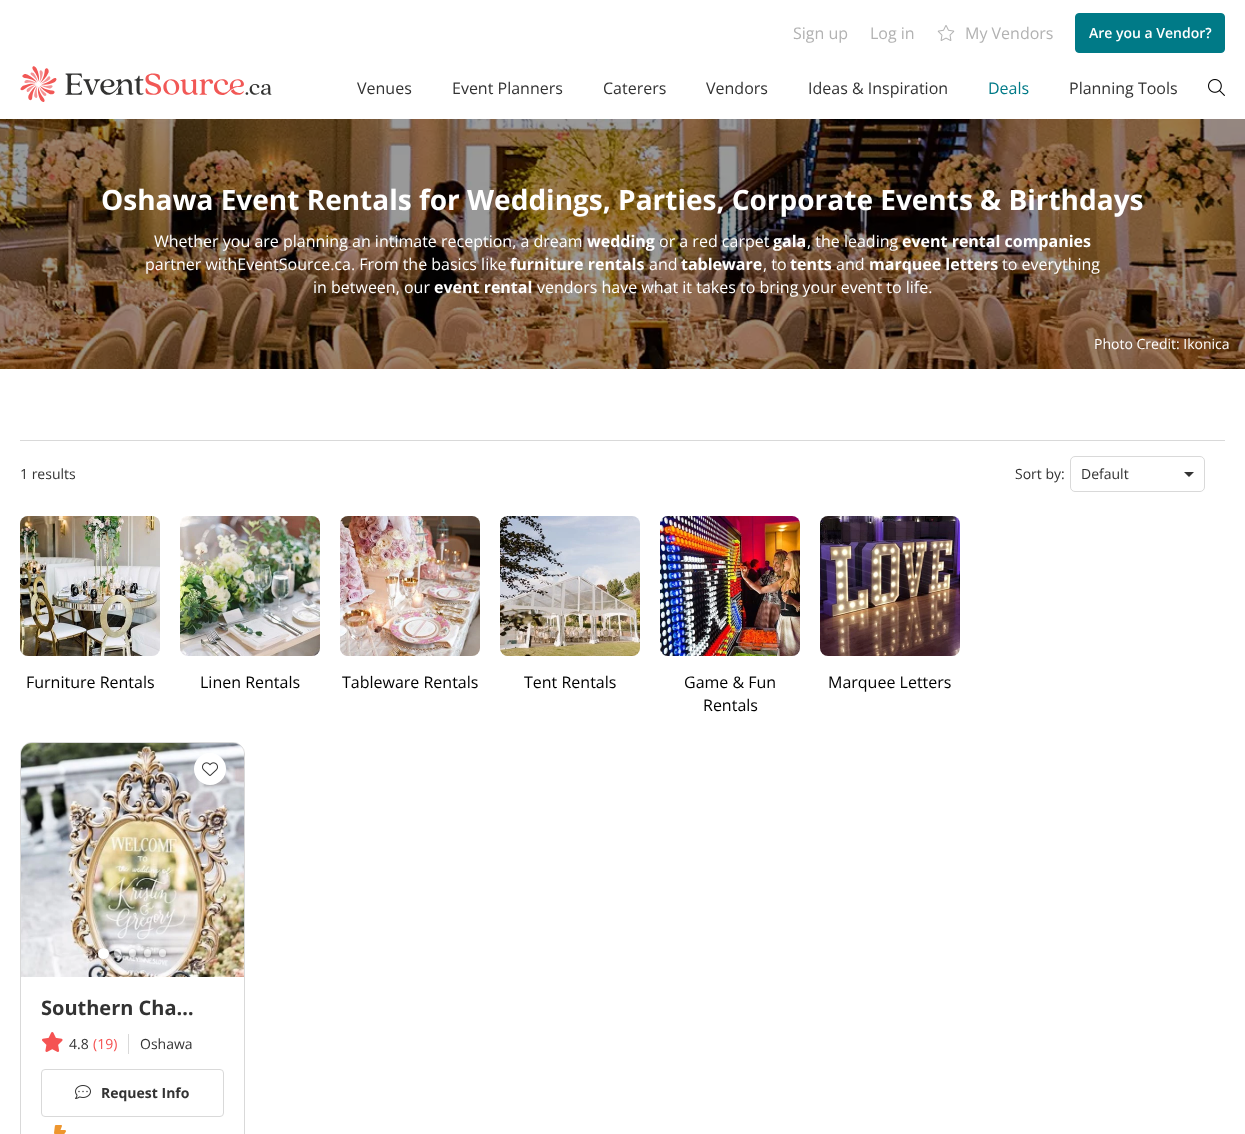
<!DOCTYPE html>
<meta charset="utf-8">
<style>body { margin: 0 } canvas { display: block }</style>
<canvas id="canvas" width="1245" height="1134"></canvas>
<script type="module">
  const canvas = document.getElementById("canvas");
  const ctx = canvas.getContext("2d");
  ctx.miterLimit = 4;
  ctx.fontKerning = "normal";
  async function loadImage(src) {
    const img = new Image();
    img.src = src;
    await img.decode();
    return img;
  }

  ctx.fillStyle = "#ffffff";
  ctx.fillRect(0, 0, 1245, 1134);
  ctx.font = "16px Open Sans";
  ctx.fillStyle = "#b2b2b2";
  ctx.fillText("Sign up", 793, 39);
  ctx.fillText("Log in", 870, 39);
  ctx.drawImage(await loadImage("img1.png"), 937, 25, 18, 16);
  ctx.fillText("My Vendors", 965, 39);
  ctx.fillStyle = "#007a87";
  ctx.beginPath();
  ctx.roundRect(1075.5, 13.5, 149, 39, 3.5);
  ctx.fill();
  ctx.strokeStyle = "#007a87";
  ctx.stroke();
  ctx.font = "600 14px Open Sans";
  ctx.fillStyle = "#ffffff";
  ctx.fillText("Are you a Vendor?", 1089, 38);
  ctx.drawImage(await loadImage("img2.png"), 20, 66, 252, 36);
  ctx.font = "16px Open Sans";
  ctx.fillStyle = "#333333";
  ctx.fillText("Venues", 357, 94);
  ctx.fillText("Event Planners", 452, 94);
  ctx.fillText("Caterers", 603, 94);
  ctx.fillText("Vendors", 706, 94);
  ctx.fillText("Ideas & Inspiration", 808, 94);
  ctx.fillStyle = "#007a87";
  ctx.fillText("Deals", 988, 94);
  ctx.fillStyle = "#333333";
  ctx.fillText("Planning Tools", 1069, 94);
  ctx.drawImage(await loadImage("img3.png"), 1208, 79, 17, 17);
  ctx.drawImage(await loadImage("img4.png"), 0, 119, 1245, 250);
  ctx.font = "bold 28px Open Sans";
  ctx.fillStyle = "#ffffff";
  ctx.fillText("Oshawa Event Rentals for Weddings, Parties, Corporate Events & Birthdays", 101, 210);
  ctx.font = "16px Open Sans";
  ctx.fillText("Whether you are planning an intimate reception, a dream", 154, 247);
  ctx.font = "bold 16px Open Sans";
  ctx.fillText("wedding", 587, 247);
  ctx.font = "16px Open Sans";
  ctx.fillText("or a red carpet", 659, 247);
  ctx.font = "bold 16px Open Sans";
  ctx.fillText("gala", 773, 247);
  ctx.font = "16px Open Sans";
  ctx.fillText(", the leading", 807, 247);
  ctx.font = "bold 16px Open Sans";
  ctx.fillText("event rental companies", 902, 247);
  ctx.font = "16px Open Sans";
  ctx.fillText("partner withEventSource.ca. From the basics like", 145, 270);
  ctx.font = "bold 16px Open Sans";
  ctx.fillText("furniture rentals", 510, 270);
  ctx.font = "16px Open Sans";
  ctx.fillText("and", 649, 270);
  ctx.font = "bold 16px Open Sans";
  ctx.fillText("tableware", 681, 270);
  ctx.font = "16px Open Sans";
  ctx.fillText(", to", 763, 270);
  ctx.font = "bold 16px Open Sans";
  ctx.fillText("tents", 790, 270);
  ctx.font = "16px Open Sans";
  ctx.fillText("and", 836, 270);
  ctx.font = "bold 16px Open Sans";
  ctx.fillText("marquee letters", 869, 270);
  ctx.font = "16px Open Sans";
  ctx.fillText("to everything", 1002, 270);
  ctx.fillText("in between, our", 313, 293);
  ctx.font = "bold 16px Open Sans";
  ctx.fillText("event rental", 434, 293);
  ctx.font = "16px Open Sans";
  ctx.fillText("vendors have what it takes to bring your event to life.", 537, 293);
  ctx.font = "14px Open Sans";
  ctx.fillText("Photo Credit: Ikonica", 1094, 349);
  ctx.fillStyle = "#d9d9d9";
  ctx.fillRect(20, 440, 1205, 1);
  ctx.fillStyle = "#333333";
  ctx.fillText("1 results", 20, 479);
  ctx.fillText("Sort by:", 1015, 479);
  ctx.beginPath();
  ctx.roundRect(1070.5, 456.5, 134, 35, 4.5);
  ctx.strokeStyle = "#d9d9d9";
  ctx.stroke();
  ctx.fillText("Default", 1081, 479);
  ctx.beginPath();
  ctx.moveTo(1184, 472);
  ctx.lineTo(1194, 472);
  ctx.lineTo(1189, 477);
  ctx.closePath();
  ctx.fill();
  ctx.drawImage(await loadImage("img5.png"), 20, 516, 140, 140);
  ctx.font = "16px Open Sans";
  ctx.fillStyle = "#000000";
  ctx.fillText("Furniture Rentals", 26, 688);
  ctx.drawImage(await loadImage("img6.png"), 180, 516, 140, 140);
  ctx.fillText("Linen Rentals", 200, 688);
  ctx.drawImage(await loadImage("img7.png"), 340, 516, 140, 140);
  ctx.fillText("Tableware Rentals", 342, 688);
  ctx.drawImage(await loadImage("img8.png"), 500, 516, 140, 140);
  ctx.fillText("Tent Rentals", 524, 688);
  ctx.drawImage(await loadImage("img9.png"), 660, 516, 140, 140);
  ctx.fillText("Game & Fun", 684, 688);
  ctx.fillText("Rentals", 703, 711);
  ctx.drawImage(await loadImage("img10.png"), 820, 516, 140, 140);
  ctx.fillText("Marquee Letters", 828, 688);
  ctx.beginPath();
  ctx.roundRect(20.5, 742.5, 224, 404, 11.5);
  ctx.stroke();
  ctx.drawImage(await loadImage("img11.png"), 21, 743, 223, 11);
  ctx.drawImage(await loadImage("img12.png"), 21, 743, 223, 234);
  ctx.save();
  ctx.beginPath();
  ctx.rect(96, 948, 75, 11);
  ctx.clip();
  ctx.fillStyle = "rgba(0, 0, 0, 0.25)";
  ctx.filter = "blur(2px)";
  ctx.beginPath();
  ctx.roundRect(98, 948, 11, 11, 5.5);
  ctx.fill();
  ctx.filter = "none";
  ctx.restore();
  ctx.fillStyle = "#ffffff";
  ctx.beginPath();
  ctx.arc(103.5, 953.5, 5.5, 0, Math.PI * 2);
  ctx.fill();
  ctx.save();
  ctx.beginPath();
  ctx.moveTo(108, 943);
  ctx.lineTo(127, 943);
  ctx.lineTo(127, 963);
  ctx.lineTo(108, 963);
  ctx.closePath();
  ctx.moveTo(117.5, 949);
  ctx.bezierCurveTo(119.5, 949, 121, 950.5, 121, 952.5);
  ctx.lineTo(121, 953.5);
  ctx.bezierCurveTo(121, 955.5, 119.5, 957, 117.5, 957);
  ctx.bezierCurveTo(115.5, 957, 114, 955.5, 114, 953.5);
  ctx.lineTo(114, 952.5);
  ctx.bezierCurveTo(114, 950.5, 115.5, 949, 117.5, 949);
  ctx.closePath();
  ctx.clip("evenodd");
  ctx.fillStyle = "rgba(0, 0, 0, 0.25)";
  ctx.filter = "blur(1.5px)";
  ctx.beginPath();
  ctx.roundRect(114, 949, 7, 8, 3.5);
  ctx.fill();
  ctx.filter = "none";
  ctx.restore();
  ctx.fillStyle = "rgba(255, 255, 255, 0.6)";
  ctx.beginPath();
  ctx.roundRect(114, 949, 7, 8, 3.5);
  ctx.fill();
  ctx.save();
  ctx.beginPath();
  ctx.moveTo(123, 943);
  ctx.lineTo(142, 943);
  ctx.lineTo(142, 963);
  ctx.lineTo(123, 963);
  ctx.closePath();
  ctx.moveTo(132.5, 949);
  ctx.bezierCurveTo(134.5, 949, 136, 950.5, 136, 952.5);
  ctx.lineTo(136, 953.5);
  ctx.bezierCurveTo(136, 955.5, 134.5, 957, 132.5, 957);
  ctx.bezierCurveTo(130.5, 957, 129, 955.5, 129, 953.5);
  ctx.lineTo(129, 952.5);
  ctx.bezierCurveTo(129, 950.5, 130.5, 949, 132.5, 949);
  ctx.closePath();
  ctx.clip("evenodd");
  ctx.fillStyle = "rgba(0, 0, 0, 0.25)";
  ctx.filter = "blur(1.5px)";
  ctx.beginPath();
  ctx.roundRect(129, 949, 7, 8, 3.5);
  ctx.fill();
  ctx.filter = "none";
  ctx.restore();
  ctx.beginPath();
  ctx.roundRect(129, 949, 7, 8, 3.5);
  ctx.fill();
  ctx.save();
  ctx.beginPath();
  ctx.moveTo(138, 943);
  ctx.lineTo(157, 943);
  ctx.lineTo(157, 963);
  ctx.lineTo(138, 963);
  ctx.closePath();
  ctx.moveTo(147.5, 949);
  ctx.bezierCurveTo(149.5, 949, 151, 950.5, 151, 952.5);
  ctx.lineTo(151, 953.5);
  ctx.bezierCurveTo(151, 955.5, 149.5, 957, 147.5, 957);
  ctx.bezierCurveTo(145.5, 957, 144, 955.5, 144, 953.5);
  ctx.lineTo(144, 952.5);
  ctx.bezierCurveTo(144, 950.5, 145.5, 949, 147.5, 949);
  ctx.closePath();
  ctx.clip("evenodd");
  ctx.fillStyle = "rgba(0, 0, 0, 0.25)";
  ctx.filter = "blur(1.5px)";
  ctx.beginPath();
  ctx.roundRect(144, 949, 7, 8, 3.5);
  ctx.fill();
  ctx.filter = "none";
  ctx.restore();
  ctx.beginPath();
  ctx.roundRect(144, 949, 7, 8, 3.5);
  ctx.fill();
  ctx.save();
  ctx.beginPath();
  ctx.moveTo(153, 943);
  ctx.lineTo(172, 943);
  ctx.lineTo(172, 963);
  ctx.lineTo(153, 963);
  ctx.closePath();
  ctx.moveTo(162.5, 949);
  ctx.bezierCurveTo(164.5, 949, 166, 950.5, 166, 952.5);
  ctx.lineTo(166, 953.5);
  ctx.bezierCurveTo(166, 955.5, 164.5, 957, 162.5, 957);
  ctx.bezierCurveTo(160.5, 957, 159, 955.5, 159, 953.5);
  ctx.lineTo(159, 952.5);
  ctx.bezierCurveTo(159, 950.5, 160.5, 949, 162.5, 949);
  ctx.closePath();
  ctx.clip("evenodd");
  ctx.fillStyle = "rgba(0, 0, 0, 0.25)";
  ctx.filter = "blur(1.5px)";
  ctx.beginPath();
  ctx.roundRect(159, 949, 7, 8, 3.5);
  ctx.fill();
  ctx.filter = "none";
  ctx.restore();
  ctx.beginPath();
  ctx.roundRect(159, 949, 7, 8, 3.5);
  ctx.fill();
  ctx.fillStyle = "#ffffff";
  ctx.beginPath();
  ctx.arc(210, 769, 16, 0, Math.PI * 2);
  ctx.fill();
  ctx.drawImage(await loadImage("img13.png"), 202, 762, 16, 14);
  ctx.font = "bold 20px Open Sans";
  ctx.fillStyle = "#333333";
  ctx.fillText("Southern Cha…", 41, 1015);
  ctx.fillStyle = "#d9d9d9";
  ctx.fillRect(128, 1034, 1, 20);
  ctx.drawImage(await loadImage("img14.png"), 42, 1032, 21, 20);
  ctx.font = "14px Open Sans";
  ctx.fillStyle = "#333333";
  ctx.fillText("4.8", 69, 1049);
  ctx.fillStyle = "#f55353";
  ctx.fillText("(19)", 93, 1049);
  ctx.fillStyle = "#333333";
  ctx.fillText("Oshawa", 140, 1049);
  ctx.beginPath();
  ctx.roundRect(41.5, 1069.5, 182, 47, 3.5);
  ctx.stroke();
  ctx.drawImage(await loadImage("img15.png"), 75, 1085, 16, 14);
  ctx.font = "bold 14px Open Sans";
  ctx.fillText("Request Info", 101, 1098);
  ctx.drawImage(await loadImage("img16.png"), 54, 1125, 12, 9);
</script>
